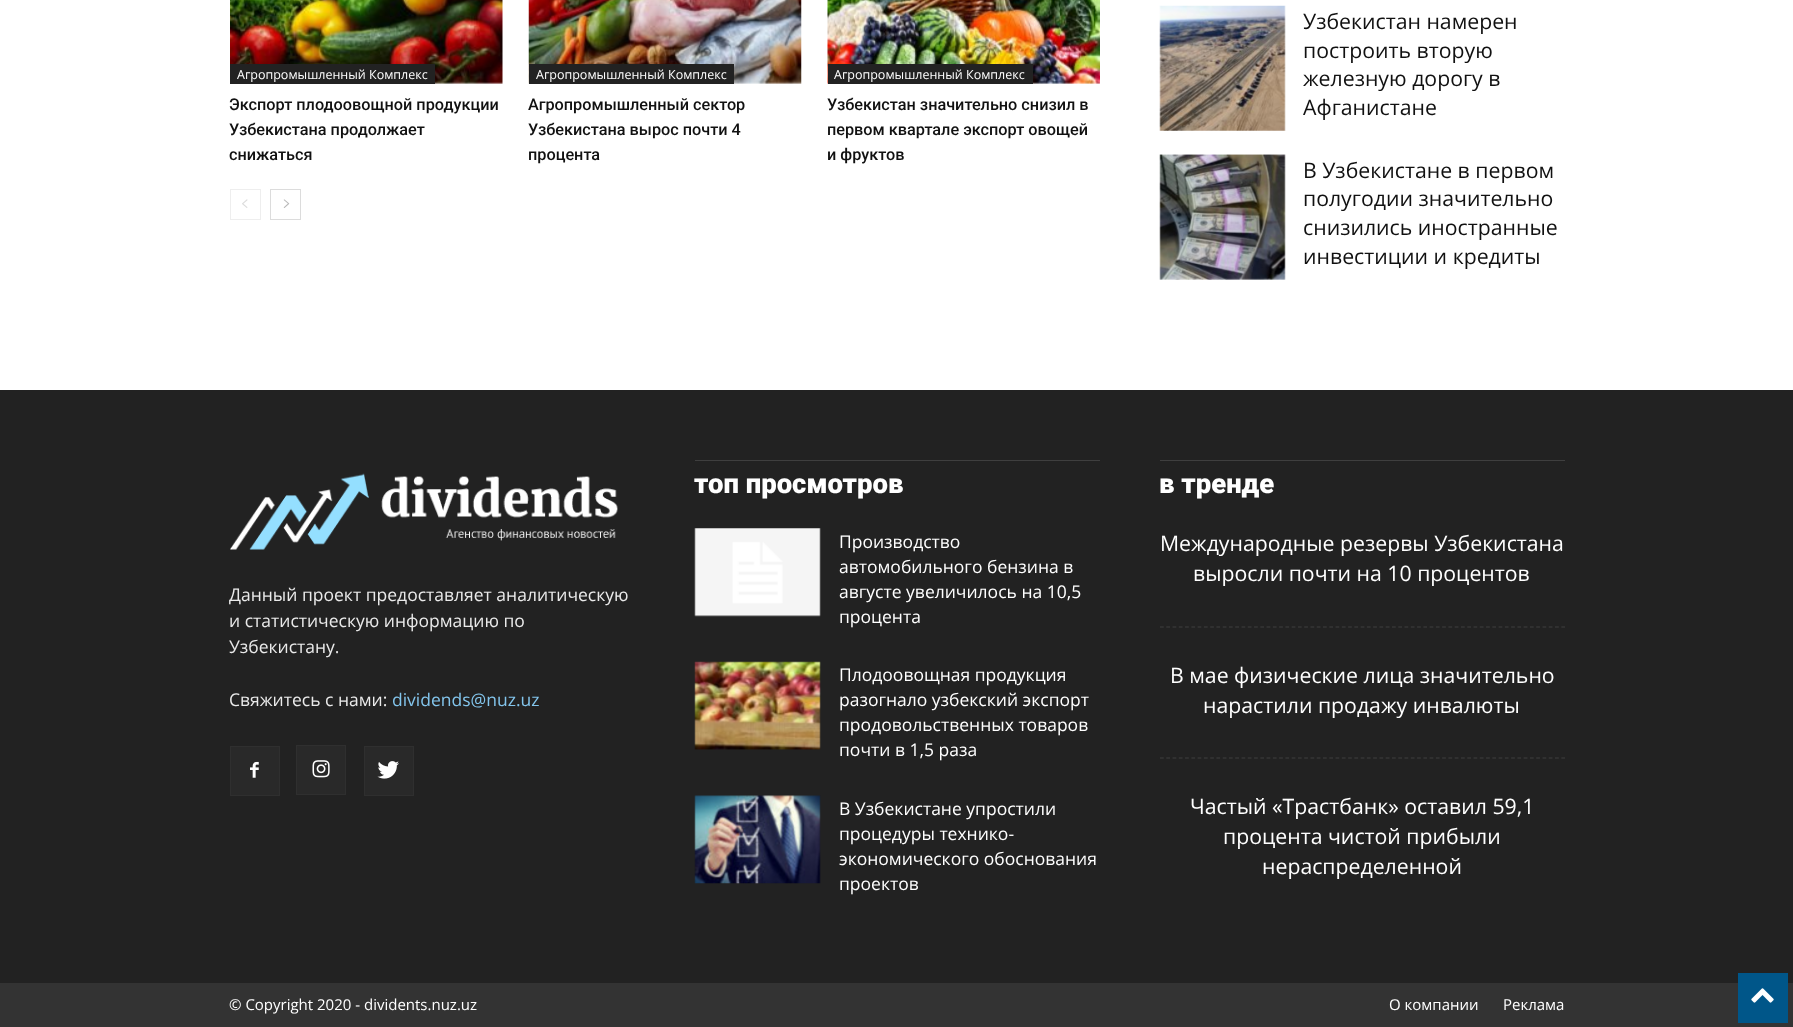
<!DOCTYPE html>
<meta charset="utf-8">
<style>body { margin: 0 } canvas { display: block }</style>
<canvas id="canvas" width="1793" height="1027"></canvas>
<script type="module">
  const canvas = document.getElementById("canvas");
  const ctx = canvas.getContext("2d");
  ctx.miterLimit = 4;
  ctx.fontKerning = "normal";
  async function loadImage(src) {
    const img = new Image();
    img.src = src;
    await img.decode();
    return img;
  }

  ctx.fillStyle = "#ffffff";
  ctx.fillRect(0, 0, 1793, 1027);
  ctx.drawImage(await loadImage("img1.png"), 230, 0, 273, 84);
  ctx.fillStyle = "#222222";
  ctx.fillRect(230, 64, 205, 20);
  ctx.font = "12.5px Open Sans";
  ctx.fillStyle = "#ffffff";
  ctx.fillText("Агропромышленный Комплекс", 237, 79);
  ctx.font = "500 16.25px Roboto";
  ctx.fillStyle = "#111111";
  ctx.fillText("Экспорт плодоовощной продукции", 229, 110);
  ctx.fillText("Узбекистана продолжает", 229, 135);
  ctx.fillText("снижаться", 229, 160);
  ctx.drawImage(await loadImage("img2.png"), 528, 0, 274, 84);
  ctx.fillStyle = "#222222";
  ctx.fillRect(529, 64, 205, 20);
  ctx.font = "12.5px Open Sans";
  ctx.fillStyle = "#ffffff";
  ctx.fillText("Агропромышленный Комплекс", 536, 79);
  ctx.font = "500 16.25px Roboto";
  ctx.fillStyle = "#111111";
  ctx.fillText("Агропромышленный сектор", 528, 110);
  ctx.fillText("Узбекистана вырос почти 4", 528, 135);
  ctx.fillText("процента", 528, 160);
  ctx.drawImage(await loadImage("img3.png"), 827, 0, 273, 84);
  ctx.fillStyle = "#222222";
  ctx.fillRect(828, 64, 205, 20);
  ctx.font = "12.5px Open Sans";
  ctx.fillStyle = "#ffffff";
  ctx.fillText("Агропромышленный Комплекс", 834, 79);
  ctx.font = "500 16.25px Roboto";
  ctx.fillStyle = "#111111";
  ctx.fillText("Узбекистан значительно снизил в", 827, 110);
  ctx.fillText("первом квартале экспорт овощей", 827, 135);
  ctx.fillText("и фруктов", 827, 160);
  ctx.strokeStyle = "#eeeeee";
  ctx.strokeRect(230.5, 189.5, 30, 30);
  ctx.drawImage(await loadImage("img4.png"), 242, 199, 6, 9);
  ctx.strokeStyle = "#dcdcdc";
  ctx.strokeRect(270.5, 189.5, 30, 30);
  ctx.drawImage(await loadImage("img5.png"), 283, 199, 7, 9);
  ctx.drawImage(await loadImage("img6.png"), 1159, 5, 127, 126);
  ctx.font = "21.25px Open Sans";
  ctx.fillText("Узбекистан намерен", 1303, 29);
  ctx.fillText("построить вторую", 1303, 58);
  ctx.fillText("железную дорогу в", 1303, 86);
  ctx.fillText("Афганистане", 1303, 115);
  ctx.drawImage(await loadImage("img7.png"), 1159, 154, 127, 126);
  ctx.fillText("В Узбекистане в первом", 1303, 178);
  ctx.fillText("полугодии значительно", 1303, 206);
  ctx.fillText("снизились иностранные", 1303, 235);
  ctx.fillText("инвестиции и кредиты", 1303, 264);
  ctx.fillStyle = "#222222";
  ctx.fillRect(0, 390, 1793, 593);
  ctx.drawImage(await loadImage("img8.png"), 230, 473, 388, 77);
  ctx.font = "17.5px Open Sans";
  ctx.fillStyle = "#eaeaea";
  ctx.fillText("Данный проект предоставляет аналитическую", 229, 601);
  ctx.fillText("и статистическую информацию по", 229, 627);
  ctx.fillText("Узбекистану.", 229, 653);
  ctx.fillText("Свяжитесь с нами:", 229, 706);
  ctx.fillStyle = "#83c5ec";
  ctx.fillText("dividends@nuz.uz", 392, 706);
  ctx.fillStyle = "#292929";
  ctx.fillRect(231, 747, 48, 48);
  ctx.drawImage(await loadImage("img9.png"), 250, 761, 9, 17);
  ctx.strokeStyle = "#2f2f2f";
  ctx.strokeRect(230.5, 746.5, 49, 49);
  ctx.fillRect(297, 746, 48, 48);
  ctx.drawImage(await loadImage("img10.png"), 312, 760, 18, 18);
  ctx.strokeRect(296.5, 745.5, 49, 49);
  ctx.fillRect(365, 747, 48, 48);
  ctx.drawImage(await loadImage("img11.png"), 377, 761, 22, 18);
  ctx.strokeRect(364.5, 746.5, 49, 49);
  ctx.fillStyle = "#3f3f3f";
  ctx.fillRect(695, 460, 405, 1);
  ctx.font = "900 27.5px Roboto";
  ctx.fillStyle = "#ffffff";
  ctx.fillText("топ просмотров", 694, 493);
  ctx.drawImage(await loadImage("img12.png"), 694, 528, 127, 89);
  ctx.font = "17.5px Open Sans";
  ctx.fillText("Производство", 839, 548);
  ctx.fillText("автомобильного бензина в", 839, 573);
  ctx.fillText("августе увеличилось на 10,5", 839, 598);
  ctx.fillText("процента", 839, 623);
  ctx.drawImage(await loadImage("img13.png"), 694, 661, 127, 89);
  ctx.fillText("Плодоовощная продукция", 839, 681);
  ctx.fillText("разогнало узбекский экспорт", 839, 706);
  ctx.fillText("продовольственных товаров", 839, 731);
  ctx.fillText("почти в 1,5 раза", 839, 756);
  ctx.drawImage(await loadImage("img14.png"), 694, 795, 127, 89);
  ctx.fillText("В Узбекистане упростили", 839, 815);
  ctx.fillText("процедуры технико-", 839, 840);
  ctx.fillText("экономического обоснования", 839, 865);
  ctx.fillText("проектов", 839, 890);
  ctx.fillStyle = "#3f3f3f";
  ctx.fillRect(1160, 460, 405, 1);
  ctx.font = "900 27.5px Roboto";
  ctx.fillStyle = "#ffffff";
  ctx.fillText("в тренде", 1159, 493);
  ctx.beginPath();
  ctx.moveTo(1160, 627);
  ctx.lineTo(1565, 627);
  ctx.strokeStyle = "#3f3f3f";
  ctx.lineWidth = 1.2;
  ctx.setLineDash([3.75, 2.52]);
  ctx.stroke();
  ctx.font = "21.25px Open Sans";
  ctx.fillText("Международные резервы Узбекистана", 1160, 551);
  ctx.fillText("выросли почти на 10 процентов", 1193, 581);
  ctx.beginPath();
  ctx.moveTo(1160, 758);
  ctx.lineTo(1565, 758);
  ctx.stroke();
  ctx.fillText("В мае физические лица значительно", 1170, 683);
  ctx.fillText("нарастили продажу инвалюты", 1203, 713);
  ctx.fillText("Частый «Трастбанк» оставил 59,1", 1190, 814);
  ctx.fillText("процента чистой прибыли", 1223, 844);
  ctx.fillText("нераспределенной", 1262, 874);
  ctx.fillStyle = "#333333";
  ctx.fillRect(0, 983, 1793, 44);
  ctx.font = "15px Open Sans";
  ctx.fillStyle = "#ffffff";
  ctx.fillText("© Copyright 2020 - dividents.nuz.uz", 229, 1010);
  ctx.fillText("О компании", 1389, 1010);
  ctx.fillText("Реклама", 1503, 1010);
  ctx.fillStyle = "#005689";
  ctx.fillRect(1738, 973, 50, 50);
  ctx.drawImage(await loadImage("img15.png"), 1751, 988, 23, 15);
</script>
